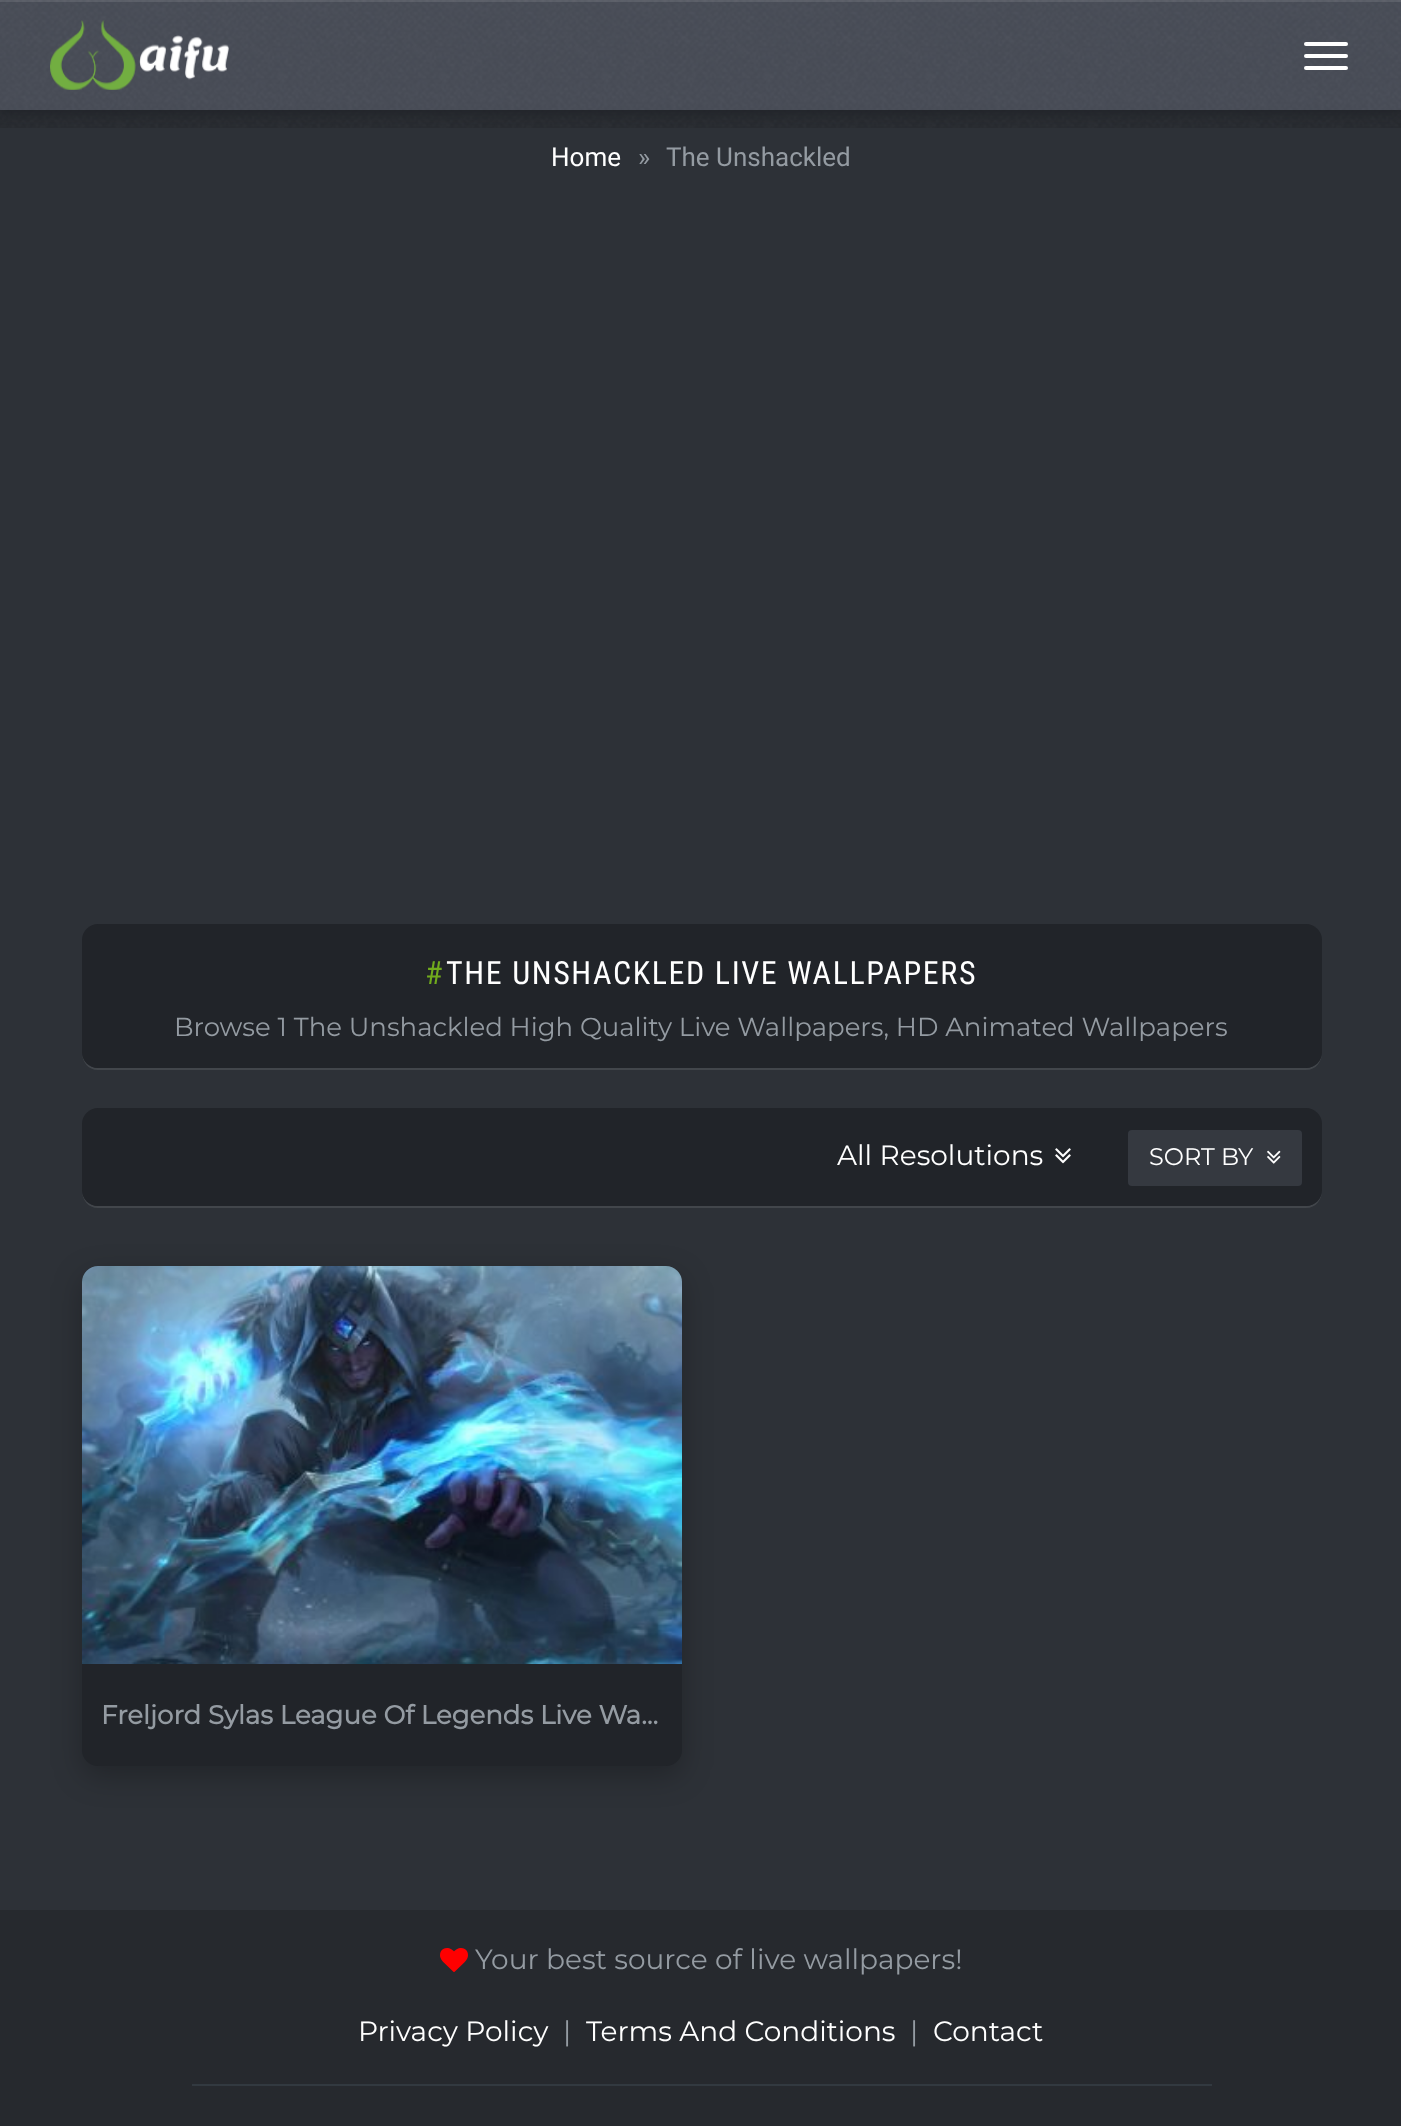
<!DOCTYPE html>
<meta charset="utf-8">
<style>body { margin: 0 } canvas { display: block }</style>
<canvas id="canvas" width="1401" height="2126"></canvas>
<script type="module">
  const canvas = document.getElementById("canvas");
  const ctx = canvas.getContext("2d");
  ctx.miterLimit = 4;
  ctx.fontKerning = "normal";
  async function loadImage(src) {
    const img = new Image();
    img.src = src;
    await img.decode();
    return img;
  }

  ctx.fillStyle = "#2d3137";
  ctx.fillRect(0, 0, 1401, 2126);
  ctx.drawImage(await loadImage("img3.png"), 0, 110, 1401, 18);
  ctx.fillStyle = "#212429";
  ctx.filter = "blur(5px)";
  ctx.beginPath();
  ctx.rect(0, 4, 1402, 110);
  ctx.fill();
  ctx.filter = "none";
  ctx.fillStyle = "#555b67";
  ctx.fillRect(0, 0, 1401, 110);
  ctx.drawImage(await loadImage("img1.png"), 0, 0, 1401, 110);
  ctx.fillStyle = "rgba(255, 255, 255, 0.1)";
  ctx.fillRect(0, 0, 1401, 2);
  ctx.drawImage(await loadImage("img2.png"), 50, 20, 179, 70);
  ctx.fillStyle = "#ffffff";
  ctx.beginPath();
  ctx.roundRect(1304, 42, 44, 4, 2);
  ctx.fill();
  ctx.beginPath();
  ctx.roundRect(1304, 54, 44, 4, 2);
  ctx.fill();
  ctx.beginPath();
  ctx.roundRect(1304, 66, 44, 4, 2);
  ctx.fill();
  ctx.font = "26px Roboto";
  ctx.fillText("Home", 551, 166);
  ctx.fillStyle = "#949ba2";
  ctx.fillText("»", 638, 166);
  ctx.fillText("The Unshackled", 666, 166);
  ctx.fillStyle = "#42464b";
  ctx.beginPath();
  ctx.moveTo(82, 1052);
  ctx.bezierCurveTo(82, 1062, 88, 1070, 98, 1070);
  ctx.lineTo(1306, 1070);
  ctx.bezierCurveTo(1316, 1070, 1322, 1062, 1322, 1052);
  ctx.bezierCurveTo(1322, 1061, 1315, 1068, 1306, 1068);
  ctx.lineTo(98, 1068);
  ctx.bezierCurveTo(89, 1068, 82, 1061, 82, 1052);
  ctx.closePath();
  ctx.fill();
  ctx.fillStyle = "#212429";
  ctx.beginPath();
  ctx.roundRect(82, 924, 1240, 144, 16);
  ctx.fill();
  ctx.letterSpacing = "1.6px";
  ctx.font = "32px Roboto Condensed";
  ctx.fillStyle = "#70aa1d";
  ctx.fillText("#", 425, 984);
  ctx.fillStyle = "#ffffff";
  ctx.fillText("THE UNSHACKLED LIVE WALLPAPERS", 446, 984);
  ctx.letterSpacing = "0px";
  ctx.font = "100 26px Montserrat";
  ctx.fillStyle = "#949ba2";
  ctx.fillText("Browse 1 The Unshackled High Quality Live Wallpapers, HD Animated Wallpapers", 174, 1036);
  ctx.fillStyle = "#42464b";
  ctx.beginPath();
  ctx.moveTo(82, 1190);
  ctx.bezierCurveTo(82, 1200, 88, 1208, 98, 1208);
  ctx.lineTo(1306, 1208);
  ctx.bezierCurveTo(1316, 1208, 1322, 1200, 1322, 1190);
  ctx.bezierCurveTo(1322, 1199, 1315, 1206, 1306, 1206);
  ctx.lineTo(98, 1206);
  ctx.bezierCurveTo(89, 1206, 82, 1199, 82, 1190);
  ctx.closePath();
  ctx.fill();
  ctx.fillStyle = "#212429";
  ctx.beginPath();
  ctx.roundRect(82, 1108, 1240, 98, 16);
  ctx.fill();
  ctx.font = "100 28px Montserrat";
  ctx.fillStyle = "#ffffff";
  ctx.fillText("All Resolutions", 837, 1165);
  ctx.drawImage(await loadImage("img4.png"), 1055, 1148, 16, 16);
  ctx.fillStyle = "#353940";
  ctx.beginPath();
  ctx.roundRect(1128, 1130, 174, 56, 4);
  ctx.fill();
  ctx.font = "100 24px Montserrat";
  ctx.fillStyle = "#ffffff";
  ctx.fillText("SORT BY", 1149, 1165);
  ctx.drawImage(await loadImage("img5.png"), 1267, 1150, 14, 14);
  ctx.fillStyle = "rgba(0, 0, 0, 0.25)";
  ctx.filter = "blur(15px)";
  ctx.beginPath();
  ctx.roundRect(82, 1276, 600, 500, 16);
  ctx.fill();
  ctx.filter = "none";
  ctx.fillStyle = "#212429";
  ctx.beginPath();
  ctx.roundRect(82, 1266, 600, 500, 16);
  ctx.fill();
  ctx.drawImage(await loadImage("img6.png"), 82, 1266, 600, 398);
  ctx.font = "bold 26px Montserrat";
  ctx.fillStyle = "#949ba2";
  ctx.fillText("Freljord Sylas League Of Legends Live Wa…", 101, 1724);
  ctx.fillStyle = "#26292e";
  ctx.fillRect(0, 1910, 1401, 216);
  ctx.drawImage(await loadImage("img7.png"), 440, 1948, 28, 24);
  ctx.font = "100 28px Montserrat";
  ctx.fillStyle = "#949ba2";
  ctx.fillText("Your best source of live wallpapers!", 475, 1969);
  ctx.fillStyle = "#ffffff";
  ctx.fillText("Privacy Policy", 358, 2041);
  ctx.fillStyle = "#949ba2";
  ctx.fillText("|", 563, 2041);
  ctx.fillStyle = "#ffffff";
  ctx.fillText("Terms And Conditions", 586, 2041);
  ctx.fillStyle = "#949ba2";
  ctx.fillText("|", 910, 2041);
  ctx.fillStyle = "#ffffff";
  ctx.fillText("Contact", 933, 2041);
  ctx.fillStyle = "#323940";
  ctx.fillRect(192, 2084, 1020, 2);
</script>
